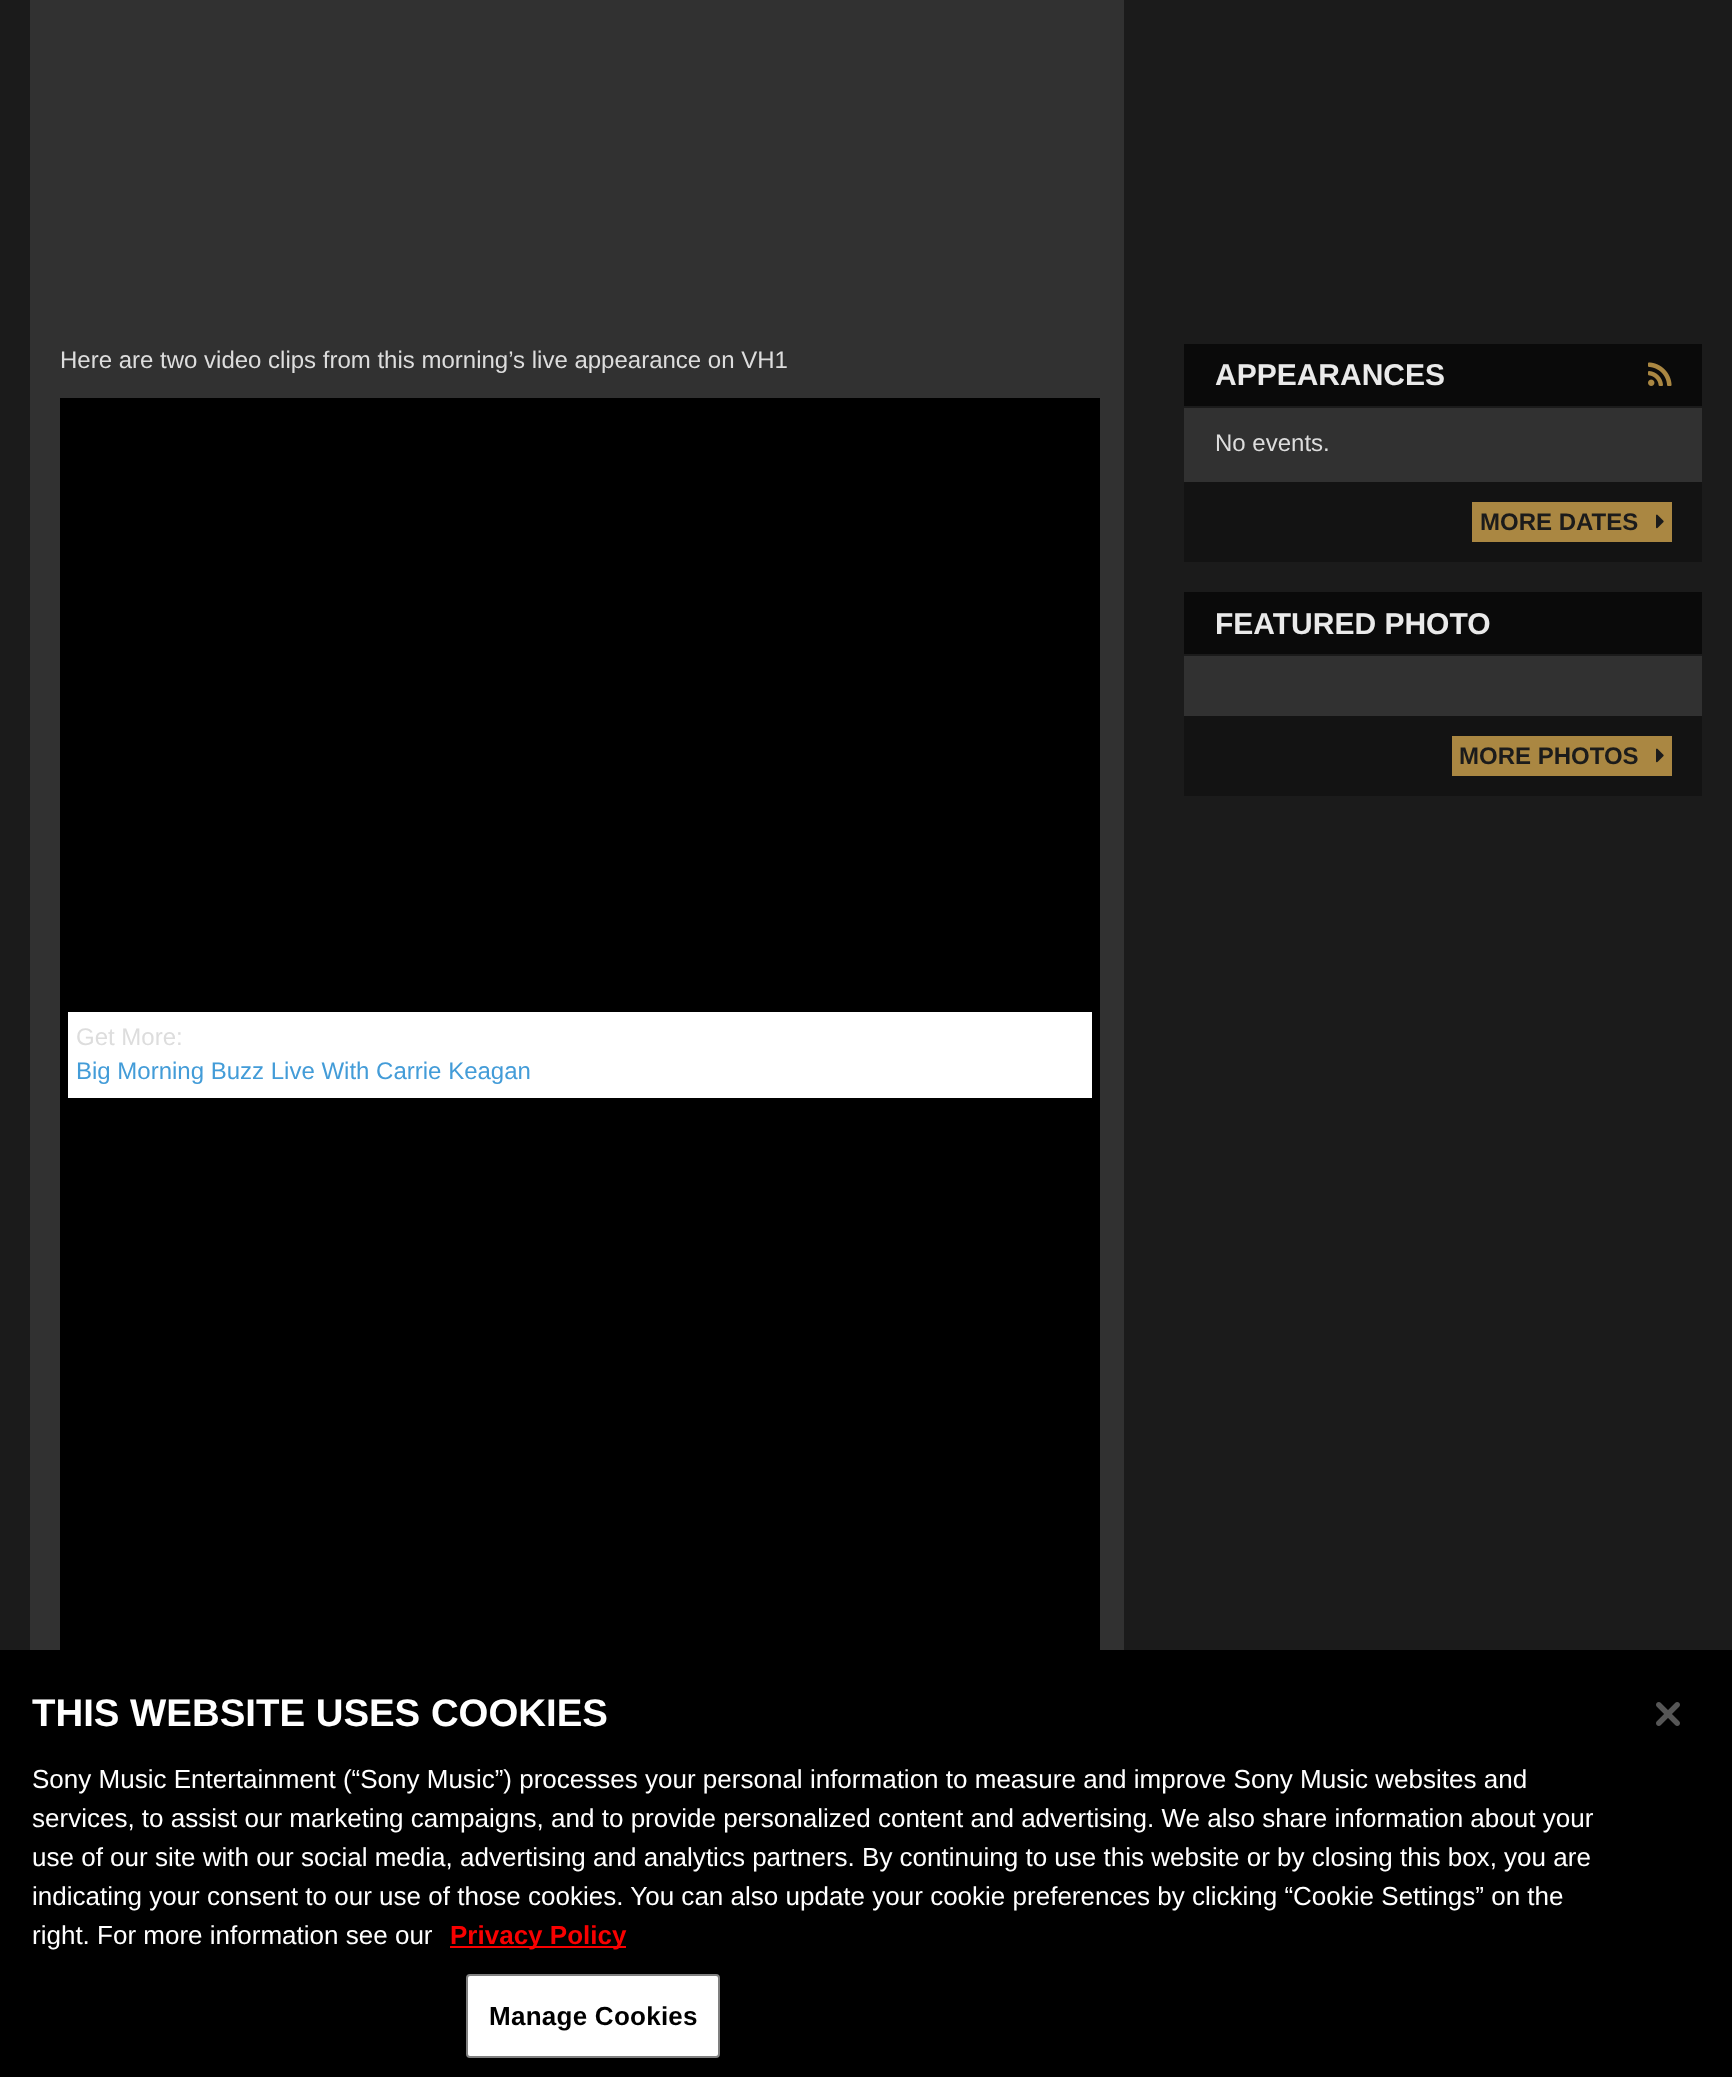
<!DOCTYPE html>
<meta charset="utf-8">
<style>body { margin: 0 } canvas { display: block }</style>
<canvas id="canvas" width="1732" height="2077"></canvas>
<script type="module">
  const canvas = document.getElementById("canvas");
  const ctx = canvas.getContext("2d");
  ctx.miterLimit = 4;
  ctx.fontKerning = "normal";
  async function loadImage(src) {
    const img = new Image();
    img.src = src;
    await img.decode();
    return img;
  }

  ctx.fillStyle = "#1b1b1b";
  ctx.fillRect(0, 0, 1732, 2077);
  ctx.fillStyle = "#313131";
  ctx.fillRect(30, 0, 1094, 1650);
  ctx.font = "24px Liberation Sans";
  ctx.fillStyle = "#dddddd";
  ctx.fillText("Here are two video clips from this morning’s live appearance on VH1", 60, 368);
  ctx.fillStyle = "#000000";
  ctx.fillRect(60, 398, 1040, 1252);
  ctx.fillStyle = "#ffffff";
  ctx.fillRect(68, 1012, 1024, 86);
  ctx.fillStyle = "#dddddd";
  ctx.fillText("Get More:", 76, 1045);
  ctx.fillStyle = "#439cd8";
  ctx.fillText("Big Morning Buzz Live With Carrie Keagan", 76, 1079);
  ctx.fillStyle = "#0a0a0a";
  ctx.fillRect(1184, 344, 518, 62);
  ctx.font = "bold 30px Liberation Sans";
  ctx.fillStyle = "#eaeaea";
  ctx.fillText("APPEARANCES", 1215, 385);
  ctx.drawImage(await loadImage("img1.png"), 1648, 362, 24, 24);
  ctx.fillStyle = "#313131";
  ctx.fillRect(1184, 408, 518, 74);
  ctx.font = "24px Liberation Sans";
  ctx.fillStyle = "#dddddd";
  ctx.fillText("No events.", 1215, 451);
  ctx.fillStyle = "#131313";
  ctx.fillRect(1184, 482, 518, 80);
  ctx.fillStyle = "#aa8742";
  ctx.fillRect(1472, 502, 200, 40);
  ctx.font = "bold 24px Liberation Sans";
  ctx.fillStyle = "#1b1b1b";
  ctx.fillText("MORE DATES", 1480, 530);
  ctx.drawImage(await loadImage("img2.png"), 1656, 514, 8, 15);
  ctx.fillStyle = "#0a0a0a";
  ctx.fillRect(1184, 592, 518, 62);
  ctx.font = "bold 30px Liberation Sans";
  ctx.fillStyle = "#eaeaea";
  ctx.fillText("FEATURED PHOTO", 1215, 634);
  ctx.fillStyle = "#313131";
  ctx.fillRect(1184, 656, 518, 60);
  ctx.fillStyle = "#131313";
  ctx.fillRect(1184, 716, 518, 80);
  ctx.fillStyle = "#aa8742";
  ctx.fillRect(1452, 736, 220, 40);
  ctx.font = "bold 24px Liberation Sans";
  ctx.fillStyle = "#1b1b1b";
  ctx.fillText("MORE PHOTOS", 1459, 764);
  ctx.drawImage(await loadImage("img2.png"), 1656, 748, 8, 15);
  ctx.fillStyle = "#000000";
  ctx.fillRect(0, 1650, 1732, 427);
  ctx.font = "bold 38.4px Liberation Sans";
  ctx.fillStyle = "#ffffff";
  ctx.fillText("THIS WEBSITE USES COOKIES", 32, 1726);
  ctx.font = "26.02px Liberation Sans";
  ctx.fillText("Sony Music Entertainment (“Sony Music”) processes your personal information to measure and improve Sony Music websites and", 32, 1788);
  ctx.fillText("services, to assist our marketing campaigns, and to provide personalized content and advertising. We also share information about your", 32, 1827);
  ctx.fillText("use of our site with our social media, advertising and analytics partners. By continuing to use this website or by closing this box, you are", 32, 1866);
  ctx.fillText("indicating your consent to our use of those cookies. You can also update your cookie preferences by clicking “Cookie Settings” on the", 32, 1905);
  ctx.fillText("right. For more information see our", 32, 1944);
  ctx.fillStyle = "#f90000";
  ctx.fillRect(450, 1946, 176, 2);
  ctx.font = "bold 26.02px Liberation Sans";
  ctx.fillText("Privacy Policy", 450, 1944);
  ctx.fillStyle = "#ffffff";
  ctx.beginPath();
  ctx.roundRect(467, 1975, 252, 82, 3);
  ctx.fill();
  ctx.strokeStyle = "#808080";
  ctx.lineWidth = 2;
  ctx.stroke();
  ctx.letterSpacing = "0.25px";
  ctx.fillStyle = "#000000";
  ctx.fillText("Manage Cookies", 489, 2025);
  ctx.drawImage(await loadImage("img3.png"), 1656, 1702, 24, 24);
</script>
